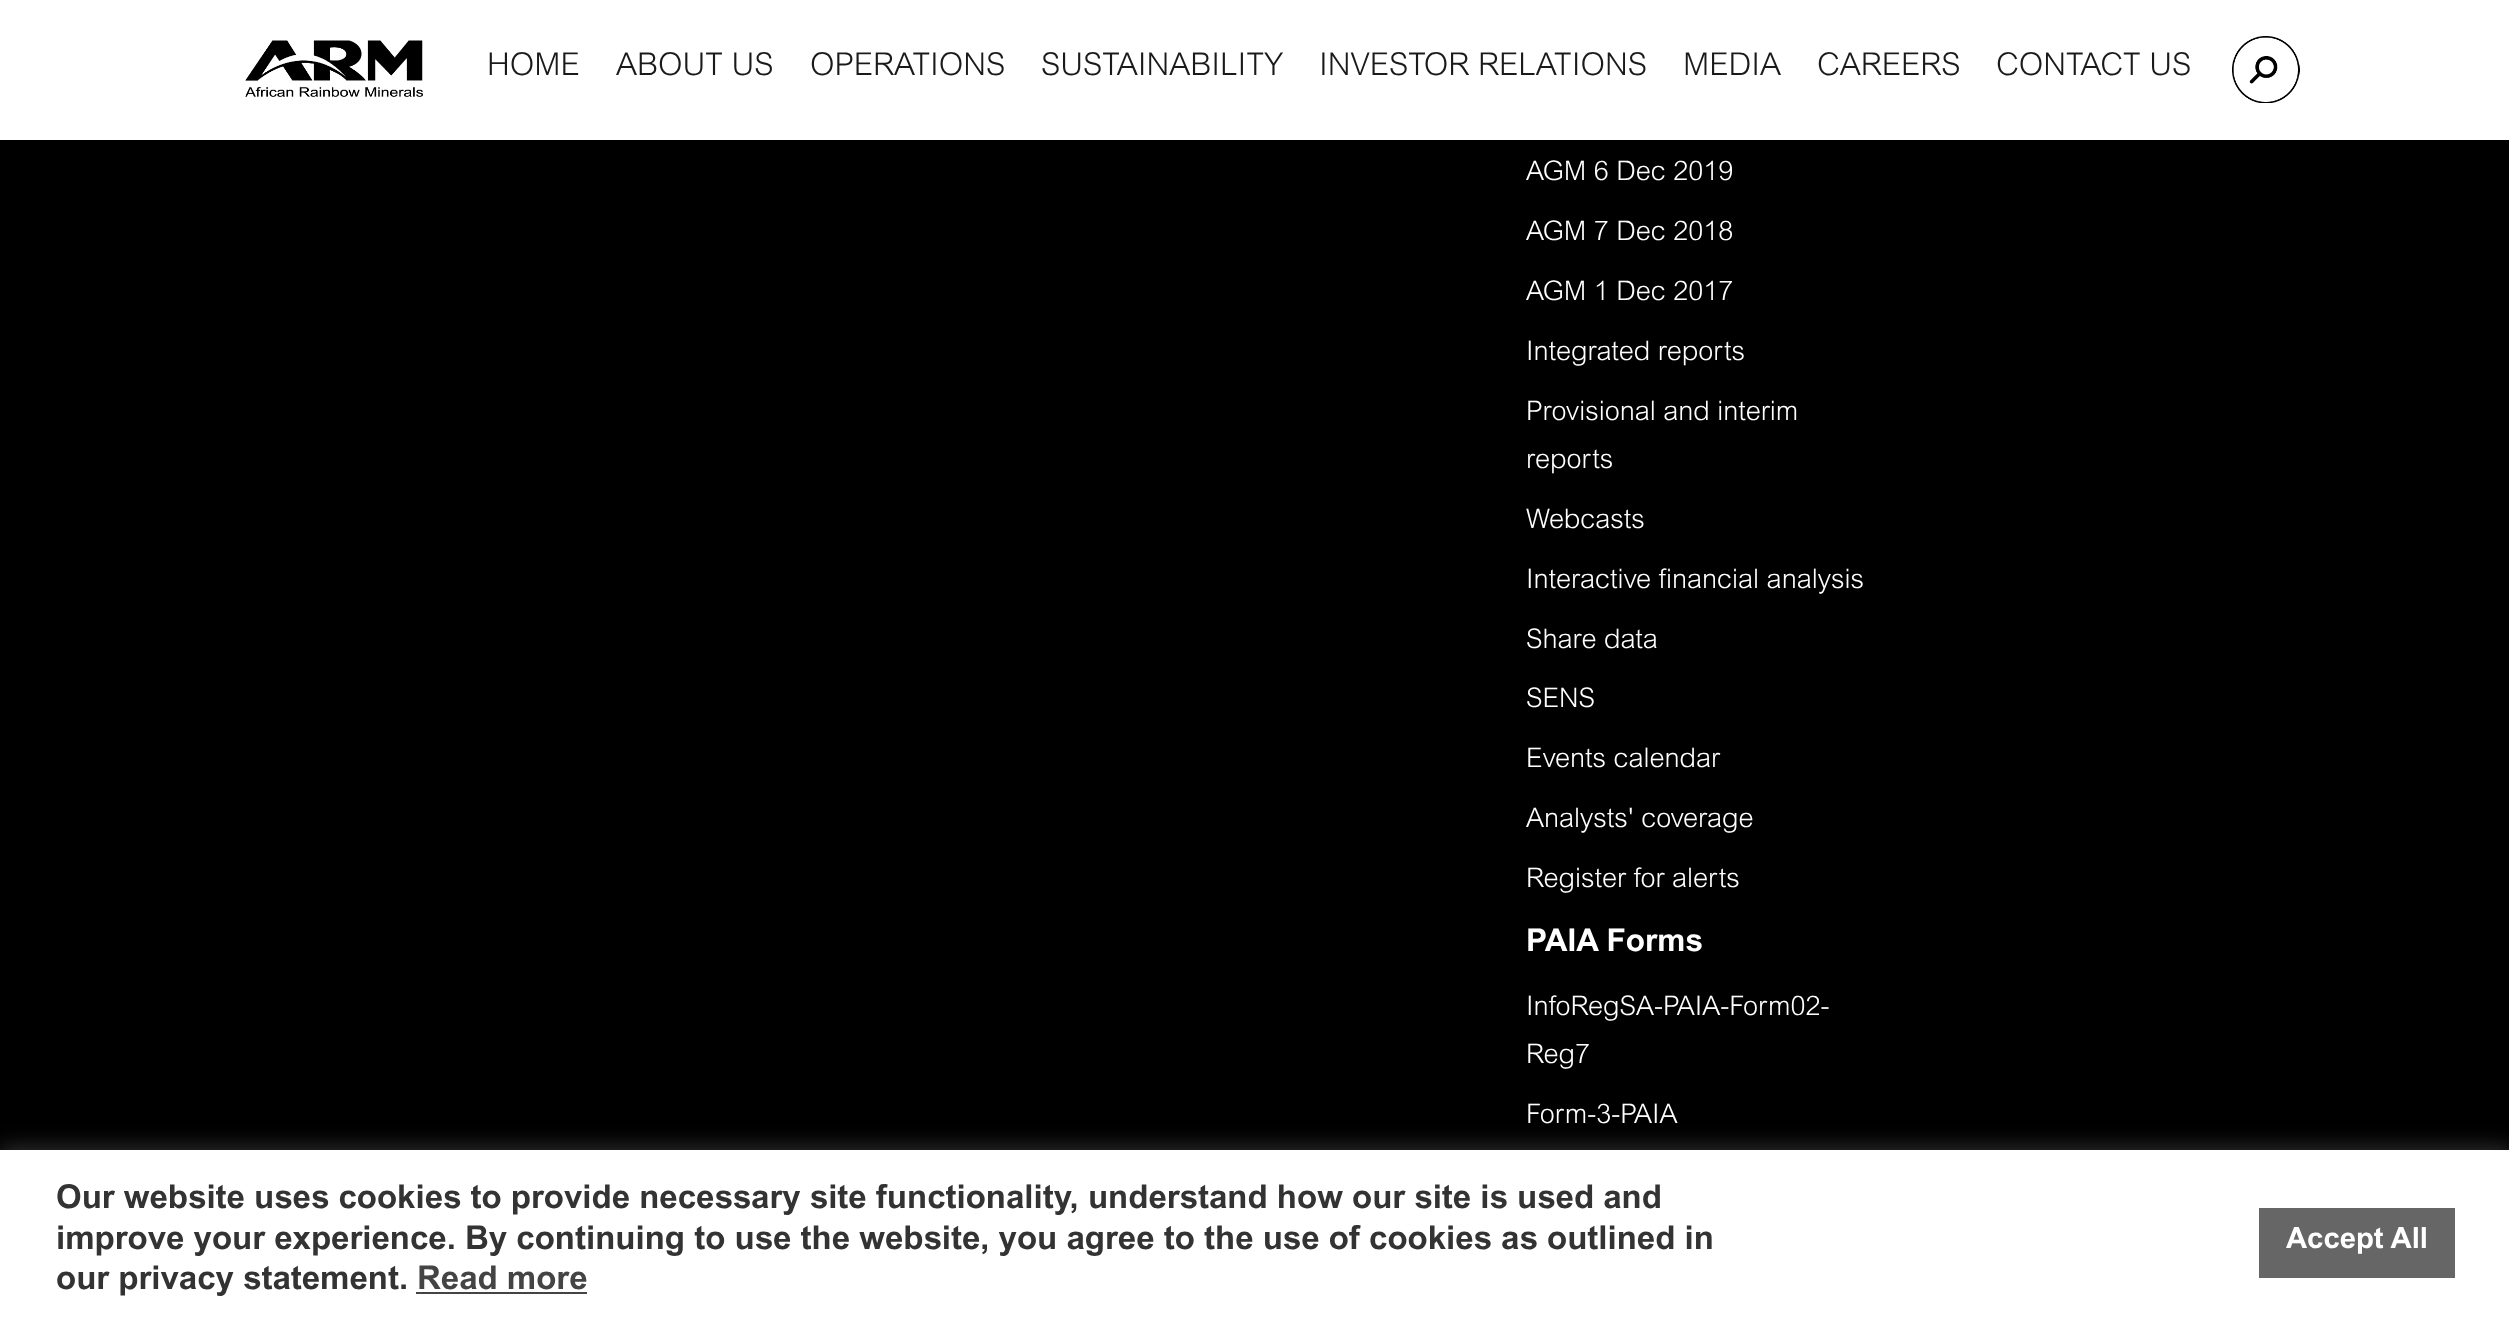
<!DOCTYPE html>
<meta charset="utf-8">
<style>body { margin: 0 } canvas { display: block }</style>
<canvas id="canvas" width="2509" height="1334"></canvas>
<script type="module">
  const canvas = document.getElementById("canvas");
  const ctx = canvas.getContext("2d");
  ctx.miterLimit = 4;
  ctx.fontKerning = "normal";
  async function loadImage(src) {
    const img = new Image();
    img.src = src;
    await img.decode();
    return img;
  }

  ctx.fillStyle = "#000000";
  ctx.fillRect(0, 0, 2509, 1334);
  ctx.fillStyle = "#ffffff";
  ctx.fillRect(0, 0, 2509, 140);
  ctx.drawImage(await loadImage("img1.png"), 245, 40, 178, 57);
  ctx.font = "300 31.5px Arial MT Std";
  ctx.fillStyle = "#1a1a1a";
  ctx.fillText("HOME", 487, 75);
  ctx.fillText("ABOUT US", 616, 75);
  ctx.fillText("OPERATIONS", 810, 75);
  ctx.fillText("SUSTAINABILITY", 1041, 75);
  ctx.fillText("INVESTOR RELATIONS", 1319, 75);
  ctx.fillText("MEDIA", 1683, 75);
  ctx.fillText("CAREERS", 1817, 75);
  ctx.fillText("CONTACT US", 1996, 75);
  ctx.drawImage(await loadImage("img2.png"), 2232, 36, 68, 67);
  ctx.font = "300 27px Arial MT Std";
  ctx.fillStyle = "#ffffff";
  ctx.fillText("AGM 6 Dec 2019", 1526, 180);
  ctx.fillText("AGM 7 Dec 2018", 1526, 240);
  ctx.fillText("AGM 1 Dec 2017", 1526, 300);
  ctx.fillText("Integrated reports", 1526, 360);
  ctx.fillText("Provisional and interim", 1526, 420);
  ctx.fillText("reports", 1526, 468);
  ctx.fillText("Webcasts", 1526, 528);
  ctx.fillText("Interactive financial analysis", 1526, 588);
  ctx.fillText("Share data", 1526, 648);
  ctx.fillText("SENS", 1526, 707);
  ctx.fillText("Events calendar", 1526, 767);
  ctx.fillText("Analysts' coverage", 1526, 827);
  ctx.fillText("Register for alerts", 1526, 887);
  ctx.font = "bold 31.5px Arial MT Std";
  ctx.fillText("PAIA Forms", 1526, 951);
  ctx.font = "300 27px Arial MT Std";
  ctx.fillText("InfoRegSA-PAIA-Form02-", 1526, 1015);
  ctx.fillText("Reg7", 1526, 1063);
  ctx.fillText("Form-3-PAIA", 1526, 1123);
  ctx.fillStyle = "rgba(172, 171, 171, 0.3)";
  ctx.filter = "blur(11px)";
  ctx.beginPath();
  ctx.rect(0, 1148, 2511, 184);
  ctx.fill();
  ctx.filter = "none";
  ctx.fillStyle = "#ffffff";
  ctx.fillRect(0, 1150, 2509, 184);
  ctx.font = "bold 33px Arial MT Std";
  ctx.fillStyle = "#333333";
  ctx.fillText("Our website uses cookies to provide necessary site functionality, understand how our site is used and", 56, 1208);
  ctx.fillText("improve your experience. By continuing to use the website, you agree to the use of cookies as outlined in", 56, 1249);
  ctx.fillText("our privacy statement.", 56, 1289);
  ctx.fillStyle = "#444444";
  ctx.fillText("Read more", 417, 1289);
  ctx.fillRect(416, 1292, 171, 2);
  ctx.fillStyle = "#666666";
  ctx.fillRect(2259, 1208, 196, 70);
  ctx.font = "bold 29.25px Arial MT Std";
  ctx.fillStyle = "#ffffff";
  ctx.fillText("Accept All", 2286, 1248);
</script>
